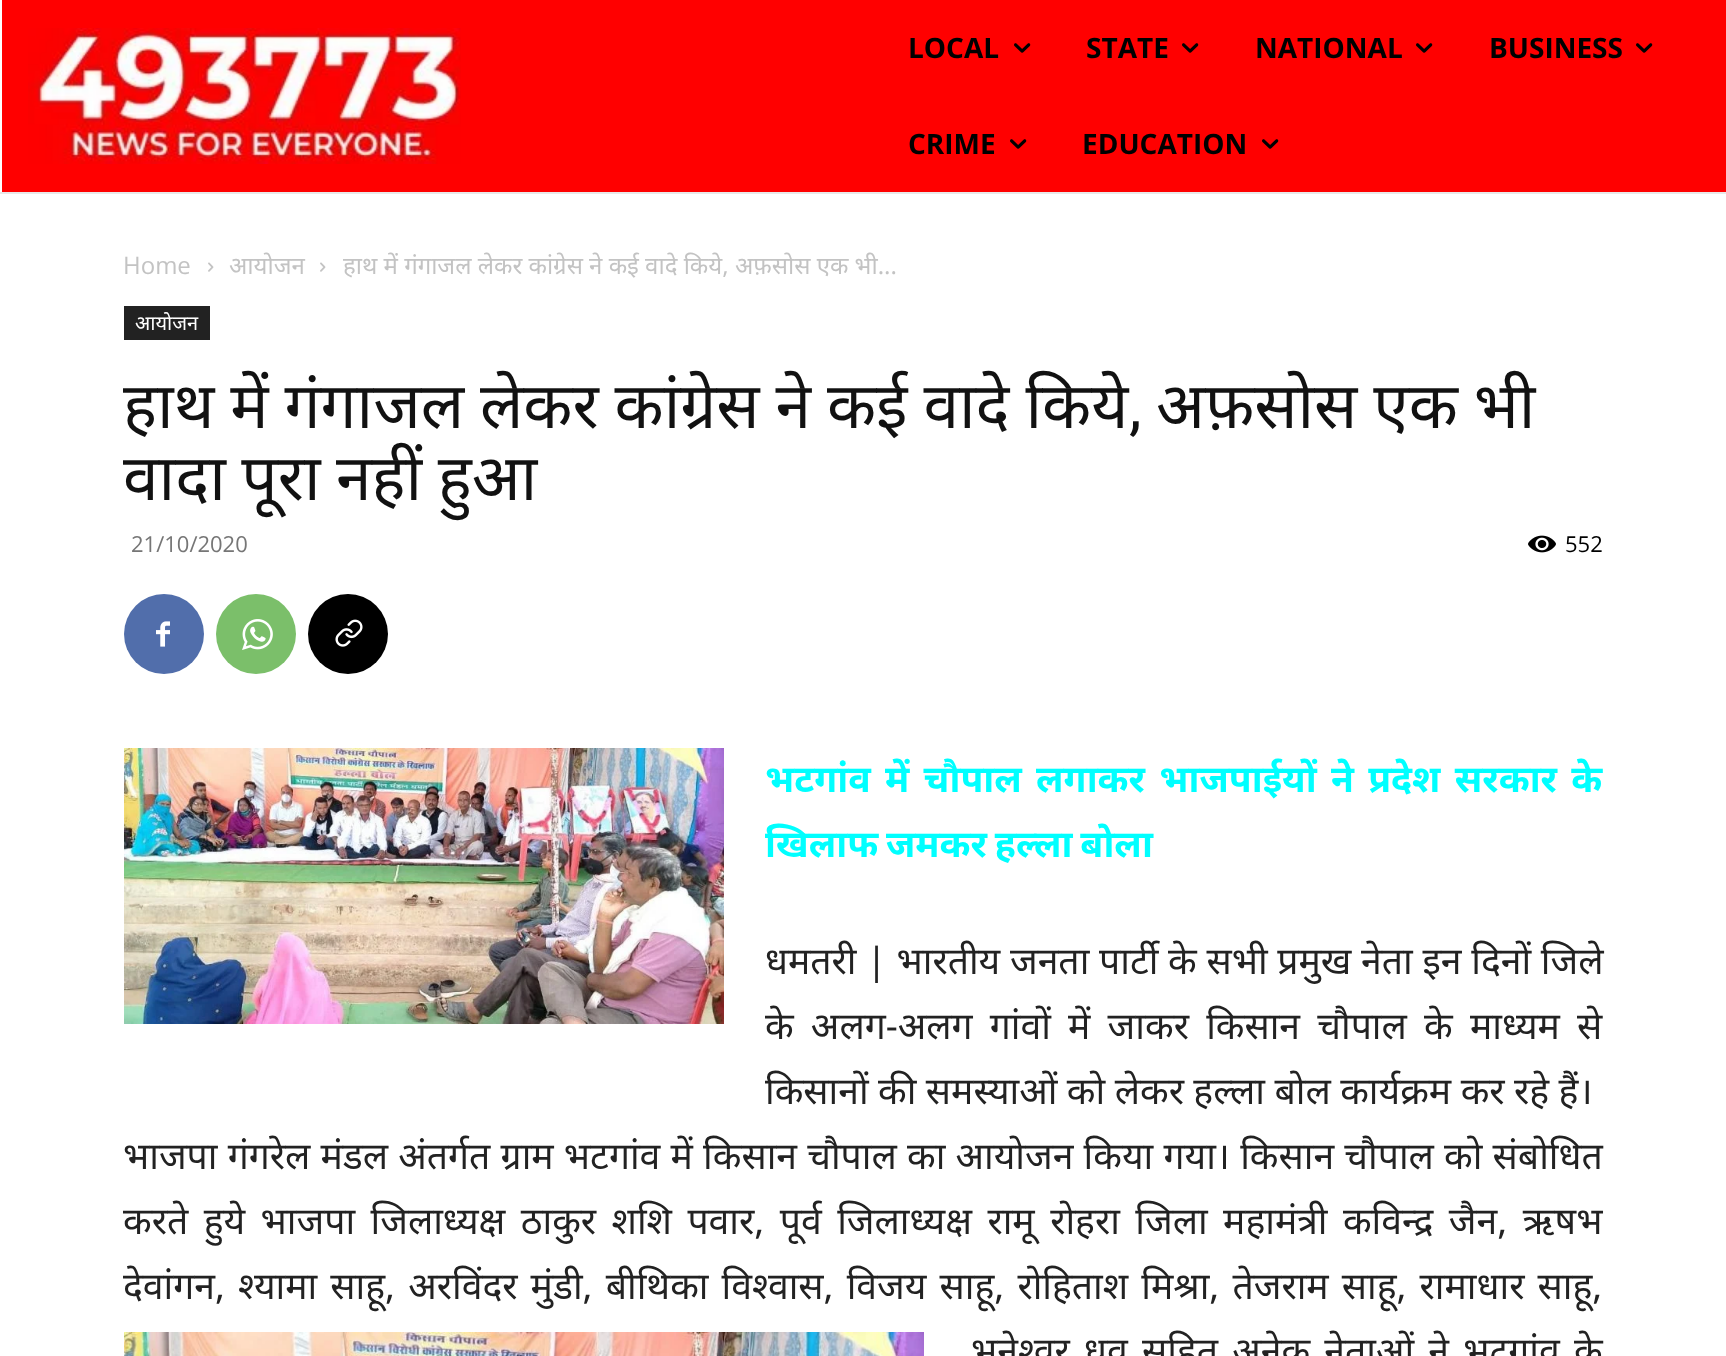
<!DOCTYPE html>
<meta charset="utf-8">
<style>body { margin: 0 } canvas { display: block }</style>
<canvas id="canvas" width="1726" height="1356"></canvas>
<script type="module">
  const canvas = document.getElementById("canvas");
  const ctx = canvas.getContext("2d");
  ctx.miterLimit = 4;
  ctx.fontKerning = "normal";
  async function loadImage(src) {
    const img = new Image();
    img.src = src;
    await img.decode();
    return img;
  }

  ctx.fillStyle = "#ffffff";
  ctx.fillRect(0, 0, 1726, 1356);
  ctx.fillStyle = "#e8e8e8";
  ctx.fillRect(0, 192, 1726, 2);
  ctx.fillStyle = "#ff0000";
  ctx.fillRect(2, 0, 1724, 192);
  ctx.drawImage(await loadImage("img1.png"), 28, 28, 433, 136);
  ctx.font = "bold 28px Open Sans";
  ctx.fillStyle = "#000000";
  ctx.fillText("LOCAL", 908, 58);
  ctx.drawImage(await loadImage("img2.png"), 1014, 43, 17, 10);
  ctx.fillText("STATE", 1086, 58);
  ctx.drawImage(await loadImage("img2.png"), 1182, 43, 17, 10);
  ctx.fillText("NATIONAL", 1255, 58);
  ctx.drawImage(await loadImage("img2.png"), 1416, 43, 17, 10);
  ctx.fillText("BUSINESS", 1489, 58);
  ctx.drawImage(await loadImage("img2.png"), 1636, 43, 17, 10);
  ctx.fillText("CRIME", 908, 154);
  ctx.drawImage(await loadImage("img2.png"), 1010, 139, 17, 10);
  ctx.fillText("EDUCATION", 1082, 154);
  ctx.drawImage(await loadImage("img2.png"), 1262, 139, 17, 10);
  ctx.font = "24px Open Sans";
  ctx.fillStyle = "#c3c3c3";
  ctx.fillText("Home", 123, 274);
  ctx.drawImage(await loadImage("img3.png"), 208, 262, 6, 10);
  ctx.font = "24px Noto Sans";
  ctx.fillText("आयोजन", 229, 274);
  ctx.drawImage(await loadImage("img3.png"), 320, 262, 6, 10);
  ctx.fillText("हाथ में गंगाजल लेकर कांग्रेस ने कई वादे किये, अफ़सोस एक भी...", 343, 274);
  ctx.fillStyle = "#222222";
  ctx.fillRect(124, 306, 86, 34);
  ctx.font = "20px Noto Sans";
  ctx.fillStyle = "#ffffff";
  ctx.fillText("आयोजन", 135, 330);
  ctx.wordSpacing = "-0.75px";
  ctx.font = "64px Noto Sans";
  ctx.fillStyle = "#111111";
  ctx.fillText("हाथ में गंगाजल लेकर कांग्रेस ने कई वादे किये", 123, 428);
  ctx.wordSpacing = "0px";
  ctx.font = "64px Roboto";
  ctx.fillText(",", 1129, 428);
  ctx.wordSpacing = "-0.75px";
  ctx.font = "64px Noto Sans";
  ctx.fillText("अफ़सोस एक भी", 1156, 428);
  ctx.wordSpacing = "-1px";
  ctx.fillText("वादा पूरा नहीं हुआ", 123, 500);
  ctx.wordSpacing = "0px";
  ctx.font = "22px Open Sans";
  ctx.fillStyle = "#767676";
  ctx.fillText("21/10/2020", 131, 552);
  ctx.drawImage(await loadImage("img4.png"), 1528, 535, 28, 18);
  ctx.fillStyle = "#000000";
  ctx.fillText("552", 1565, 552);
  ctx.fillStyle = "#516eab";
  ctx.beginPath();
  ctx.arc(164, 634, 40, 0, Math.PI * 2);
  ctx.fill();
  ctx.drawImage(await loadImage("img5.png"), 156, 621, 14, 26);
  ctx.fillStyle = "#7bbf6a";
  ctx.beginPath();
  ctx.arc(256, 634, 40, 0, Math.PI * 2);
  ctx.fill();
  ctx.drawImage(await loadImage("img6.png"), 242, 619, 31, 31);
  ctx.fillStyle = "#000000";
  ctx.beginPath();
  ctx.arc(348, 634, 40, 0, Math.PI * 2);
  ctx.fill();
  ctx.drawImage(await loadImage("img7.png"), 335, 619, 28, 28);
  ctx.drawImage(await loadImage("img8.png"), 124, 748, 600, 276);
  ctx.wordSpacing = "4.5px";
  ctx.font = "bold 37.35px Noto Sans";
  ctx.fillStyle = "#00ffff";
  ctx.fillText("भटगांव में चौपाल लगाकर भाजपाईयों ने प्रदेश सरकार के", 765, 792);
  ctx.wordSpacing = "-2px";
  ctx.fillText("खिलाफ जमकर हल्ला बोला", 765, 857);
  ctx.wordSpacing = "0px";
  ctx.font = "37.35px Noto Sans";
  ctx.fillStyle = "#222222";
  ctx.fillText("धमतरी | भारतीय जनता पार्टी के सभी प्रमुख नेता इन दिनों जिले", 765, 974);
  ctx.wordSpacing = "7.5px";
  ctx.fillText("के अलग-अलग गांवों में जाकर किसान चौपाल के माध्यम से", 765, 1039);
  ctx.wordSpacing = "-0.25px";
  ctx.fillText("किसानों की समस्याओं को लेकर हल्ला बोल कार्यक्रम कर रहे हैं।", 765, 1104);
  ctx.wordSpacing = "0.5px";
  ctx.fillText("भाजपा गंगरेल मंडल अंतर्गत ग्राम भटगांव में किसान चौपाल का आयोजन किया गया। किसान चौपाल को संबोधित", 123, 1169);
  ctx.wordSpacing = "5.75px";
  ctx.fillText("करते हुये भाजपा जिलाध्यक्ष ठाकुर शशि पवार, पूर्व जिलाध्यक्ष रामू रोहरा जिला महामंत्री कविन्द्र जैन, ऋषभ", 123, 1234);
  ctx.wordSpacing = "3.4px";
  ctx.fillText("देवांगन, श्यामा साहू, अरविंदर मुंडी, बीथिका विश्वास, विजय साहू, रोहिताश मिश्रा, तेजराम साहू, रामाधार साहू,", 123, 1299);
  ctx.drawImage(await loadImage("img9.png"), 124, 1332, 800, 24);
  ctx.wordSpacing = "4.5px";
  ctx.fillText("भुनेश्वर ध्रुव सहित अनेक नेताओं ने भटगांव के", 971, 1364);
</script>
